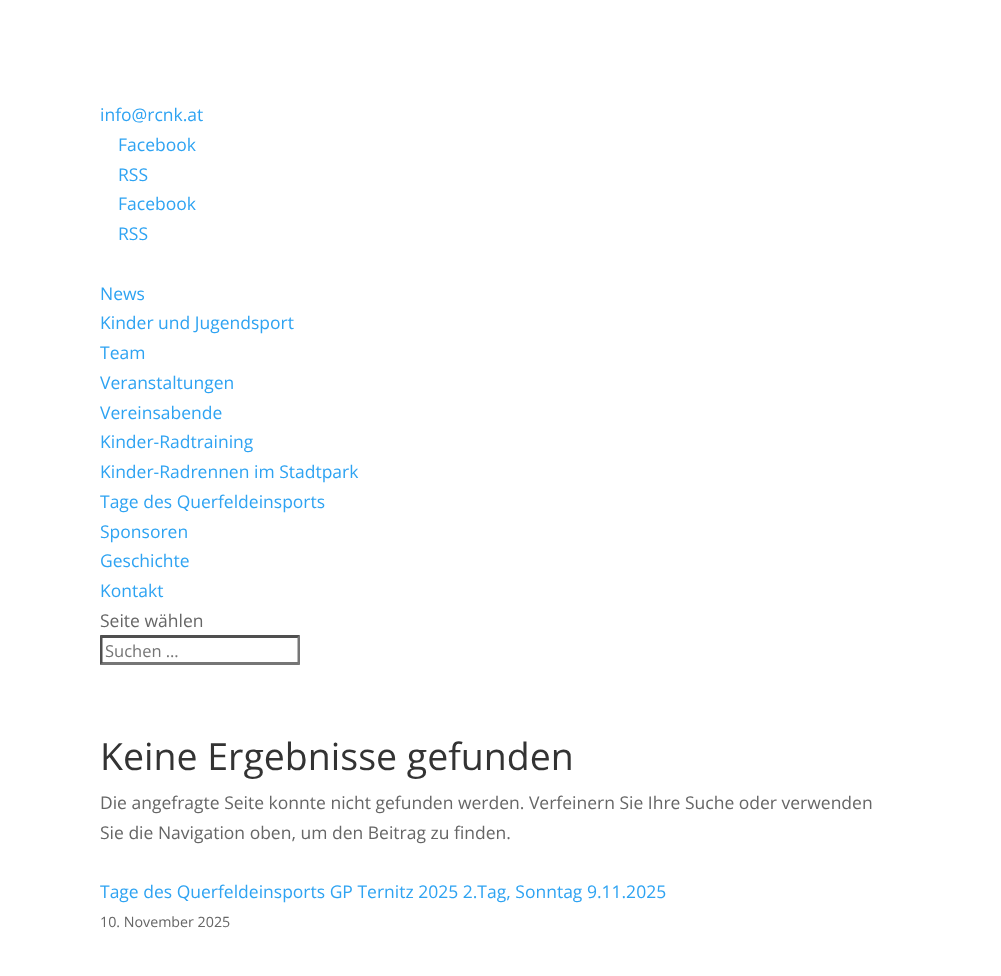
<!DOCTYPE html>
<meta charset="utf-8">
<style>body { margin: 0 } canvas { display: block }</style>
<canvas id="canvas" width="1001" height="976"></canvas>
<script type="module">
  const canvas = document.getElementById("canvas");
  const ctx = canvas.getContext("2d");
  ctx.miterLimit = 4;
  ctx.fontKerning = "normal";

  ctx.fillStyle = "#ffffff";
  ctx.fillRect(0, 0, 1001, 976);
  ctx.font = "17.5px Open Sans";
  ctx.fillStyle = "#2ea3f2";
  ctx.fillText("info@rcnk.at", 100, 121);
  ctx.fillText("Facebook", 118, 151);
  ctx.fillText("RSS", 118, 181);
  ctx.fillText("Facebook", 118, 210);
  ctx.fillText("RSS", 118, 240);
  ctx.fillText("News", 100, 300);
  ctx.fillText("Kinder und Jugendsport", 100, 329);
  ctx.fillText("Team", 100, 359);
  ctx.fillText("Veranstaltungen", 100, 389);
  ctx.fillText("Vereinsabende", 100, 419);
  ctx.fillText("Kinder-Radtraining", 100, 448);
  ctx.fillText("Kinder-Radrennen im Stadtpark", 100, 478);
  ctx.fillText("Tage des Querfeldeinsports", 100, 508);
  ctx.fillText("Sponsoren", 100, 538);
  ctx.fillText("Geschichte", 100, 567);
  ctx.fillText("Kontakt", 100, 597);
  ctx.fillStyle = "#666666";
  ctx.fillText("Seite wählen", 100, 627);
  ctx.fillStyle = "#4f4f4f";
  ctx.beginPath();
  ctx.moveTo(100, 635);
  ctx.lineTo(300, 635);
  ctx.lineTo(298, 638);
  ctx.lineTo(102, 638);
  ctx.closePath();
  ctx.fill();
  ctx.fillStyle = "#767676";
  ctx.beginPath();
  ctx.moveTo(300, 635);
  ctx.lineTo(300, 665);
  ctx.lineTo(297.5, 662.5);
  ctx.lineTo(297.5, 637.5);
  ctx.closePath();
  ctx.fill();
  ctx.beginPath();
  ctx.moveTo(300, 665);
  ctx.lineTo(100, 665);
  ctx.lineTo(102, 662);
  ctx.lineTo(298, 662);
  ctx.closePath();
  ctx.fill();
  ctx.fillStyle = "#4f4f4f";
  ctx.beginPath();
  ctx.moveTo(100, 665);
  ctx.lineTo(100, 635);
  ctx.lineTo(102.5, 637.5);
  ctx.lineTo(102.5, 662.5);
  ctx.closePath();
  ctx.fill();
  ctx.font = "16.5px Open Sans";
  ctx.fillStyle = "#757575";
  ctx.fillText("Suchen …", 105, 657);
  ctx.font = "37.5px Open Sans";
  ctx.fillStyle = "#333333";
  ctx.fillText("Keine Ergebnisse gefunden", 100, 770);
  ctx.font = "17.5px Open Sans";
  ctx.fillStyle = "#666666";
  ctx.fillText("Die angefragte Seite konnte nicht gefunden werden. Verfeinern Sie Ihre Suche oder verwenden", 100, 809);
  ctx.fillText("Sie die Navigation oben, um den Beitrag zu finden.", 100, 839);
  ctx.fillStyle = "#2ea3f2";
  ctx.fillText("Tage des Querfeldeinsports GP Ternitz 2025 2.Tag, Sonntag 9.11.2025", 100, 898);
  ctx.font = "14.25px Open Sans";
  ctx.fillStyle = "#666666";
  ctx.fillText("10. November 2025", 100, 927);
</script>
